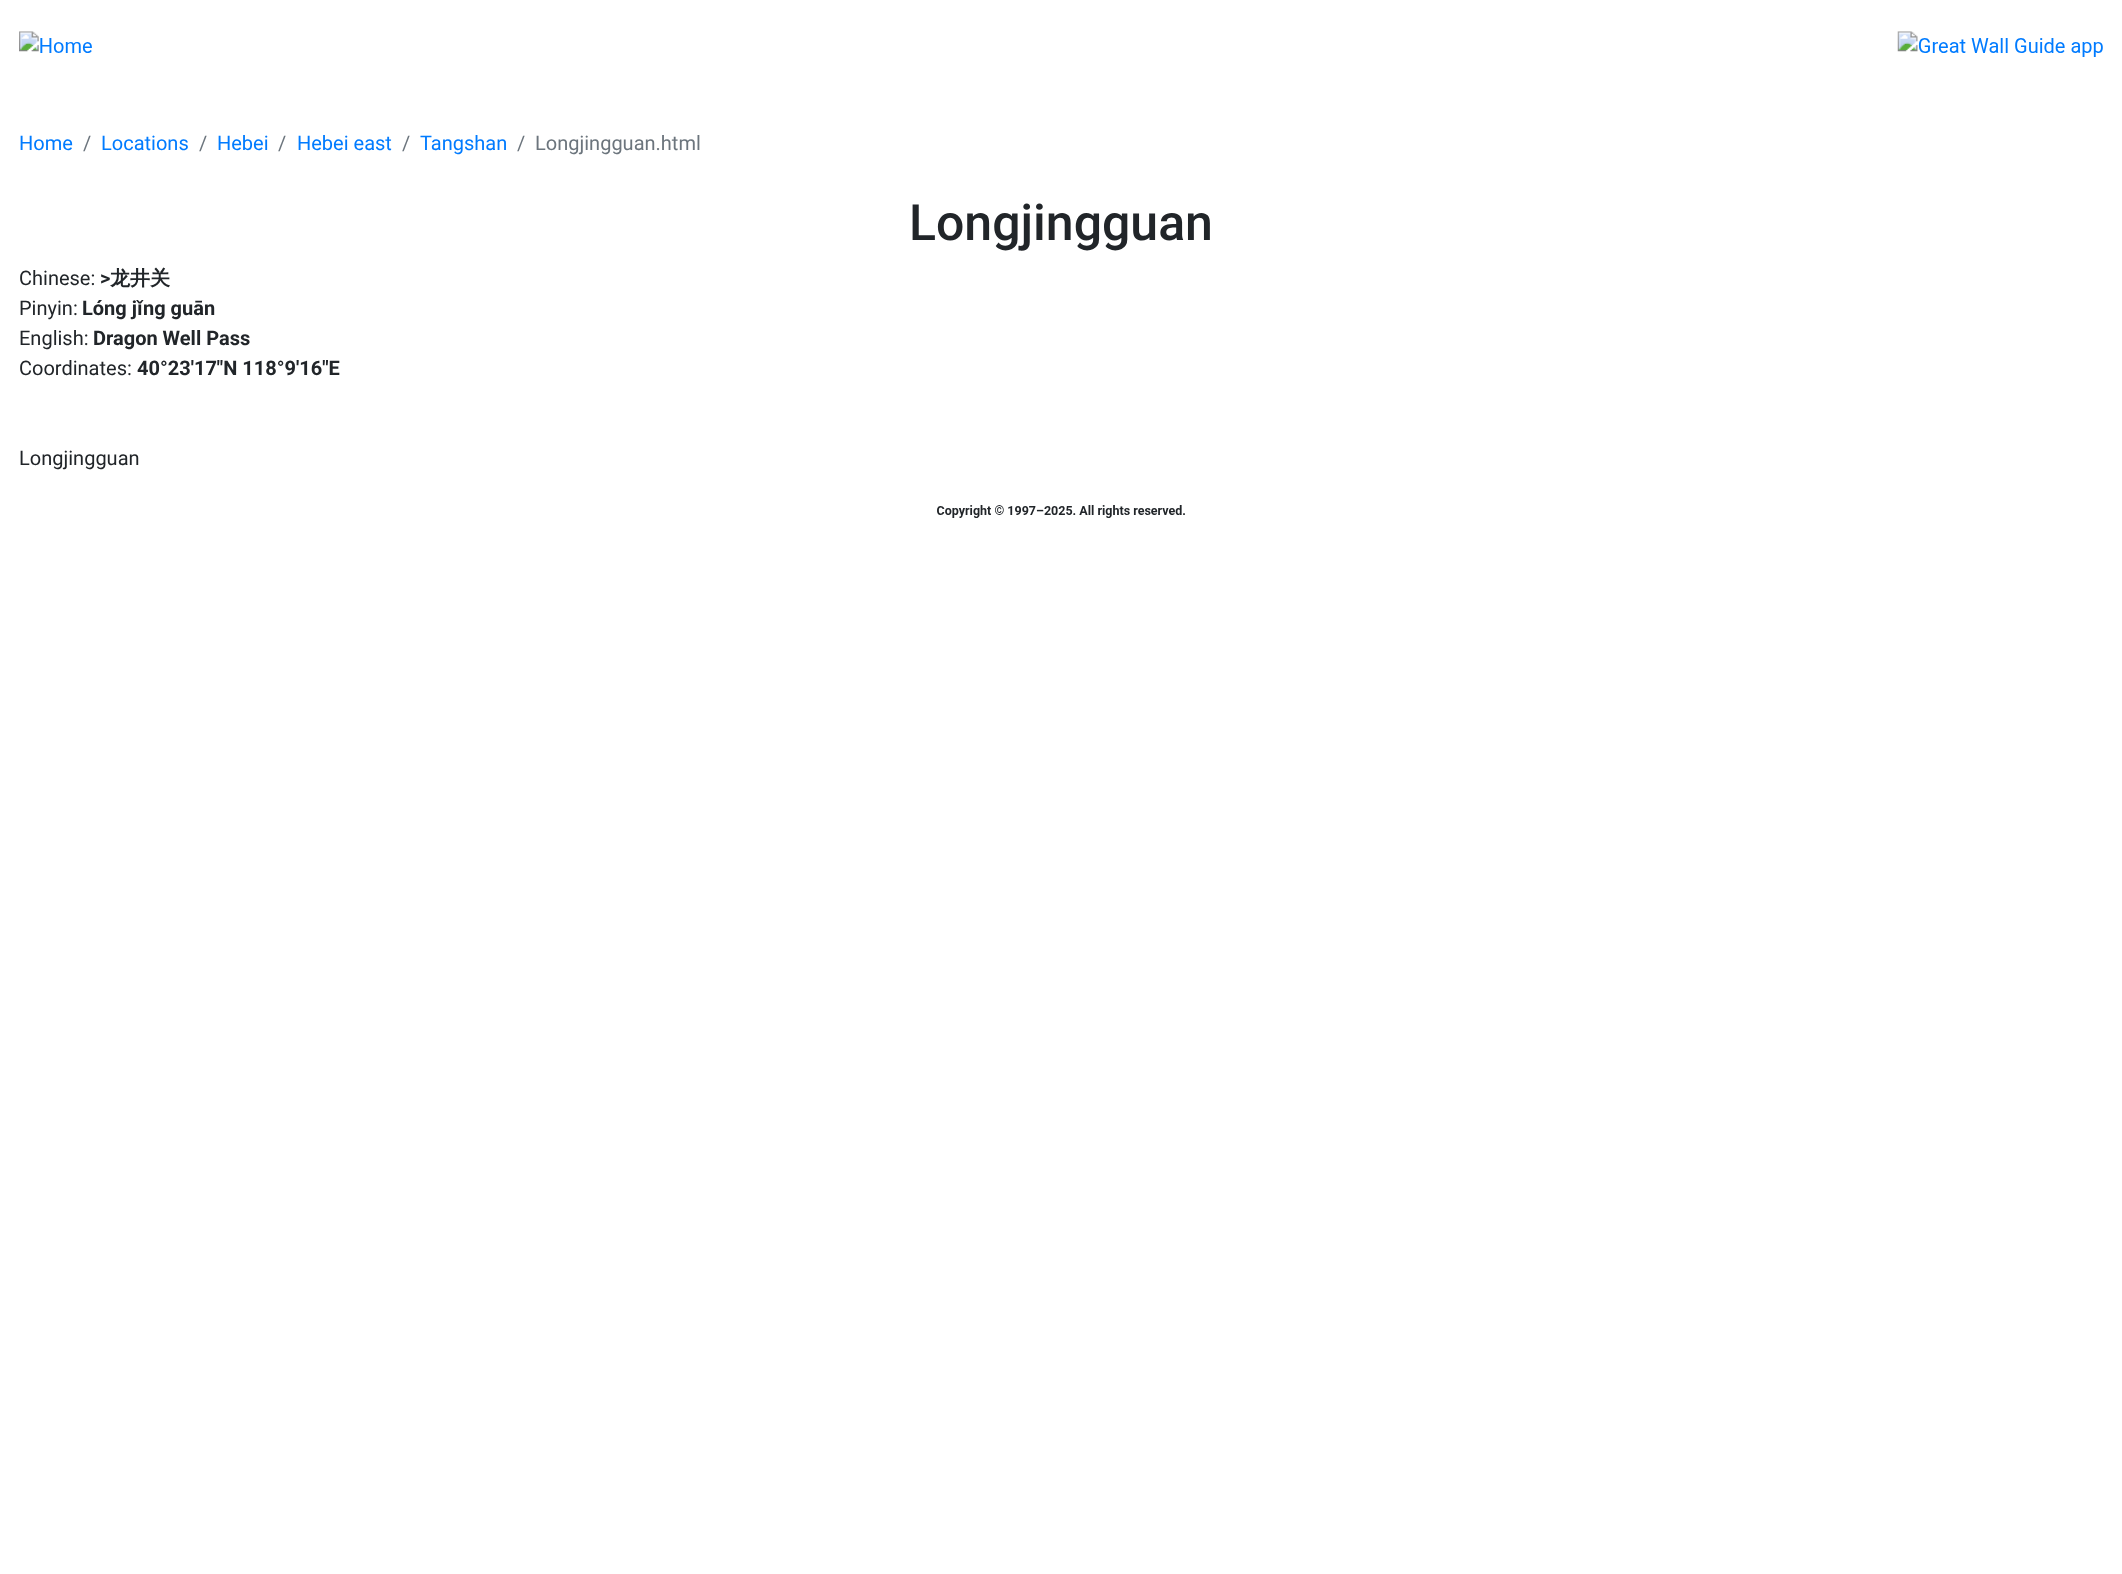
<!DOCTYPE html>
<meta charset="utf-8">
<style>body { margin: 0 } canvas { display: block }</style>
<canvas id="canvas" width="2122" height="1574"></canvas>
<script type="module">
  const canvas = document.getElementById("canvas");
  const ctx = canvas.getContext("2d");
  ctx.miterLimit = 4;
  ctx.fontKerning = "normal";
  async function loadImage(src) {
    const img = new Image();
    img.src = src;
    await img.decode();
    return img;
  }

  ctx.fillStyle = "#ffffff";
  ctx.fillRect(0, 0, 2122, 1574);
  ctx.drawImage(await loadImage("img1.png"), 19, 31, 2084, 26);
  ctx.font = "20px Roboto";
  ctx.fillStyle = "#007bff";
  ctx.fillText("Home", 19, 150);
  ctx.fillStyle = "#6c757d";
  ctx.fillText("/", 83, 150);
  ctx.fillStyle = "#007bff";
  ctx.fillText("Locations", 101, 150);
  ctx.fillStyle = "#6c757d";
  ctx.fillText("/", 199, 150);
  ctx.fillStyle = "#007bff";
  ctx.fillText("Hebei", 217, 150);
  ctx.fillStyle = "#6c757d";
  ctx.fillText("/", 278, 150);
  ctx.fillStyle = "#007bff";
  ctx.fillText("Hebei east", 297, 150);
  ctx.fillStyle = "#6c757d";
  ctx.fillText("/", 402, 150);
  ctx.fillStyle = "#007bff";
  ctx.fillText("Tangshan", 420, 150);
  ctx.fillStyle = "#6c757d";
  ctx.fillText("/", 517, 150);
  ctx.fillText("Longjingguan.html", 535, 150);
  ctx.font = "500 50px Roboto";
  ctx.fillStyle = "#212529";
  ctx.fillText("Longjingguan", 909, 240);
  ctx.font = "20px Roboto";
  ctx.fillText("Chinese:", 19, 285);
  ctx.font = "bold 20px Roboto";
  ctx.fillText(">", 100, 285);
  ctx.font = "bold 20px WenQuanYi Zen Hei";
  ctx.fillText("龙井关", 110, 285);
  ctx.font = "20px Roboto";
  ctx.fillText("Pinyin:", 19, 315);
  ctx.font = "bold 20px Roboto";
  ctx.fillText("Lóng j", 82, 315);
  ctx.font = "bold 20px Liberation Sans";
  ctx.fillText("ǐ", 137, 315);
  ctx.font = "bold 20px Roboto";
  ctx.fillText("ng guān", 143, 315);
  ctx.font = "20px Roboto";
  ctx.fillText("English:", 19, 345);
  ctx.font = "bold 20px Roboto";
  ctx.fillText("Dragon Well Pass", 93, 345);
  ctx.font = "20px Roboto";
  ctx.fillText("Coordinates:", 19, 375);
  ctx.font = "bold 20px Roboto";
  ctx.fillText("40°23'17\"N 118°9'16\"E", 137, 375);
  ctx.font = "20px Roboto";
  ctx.fillText("Longjingguan", 19, 465);
  ctx.drawImage(await loadImage("img2.png"), 937, 505, 248, 13);
</script>
